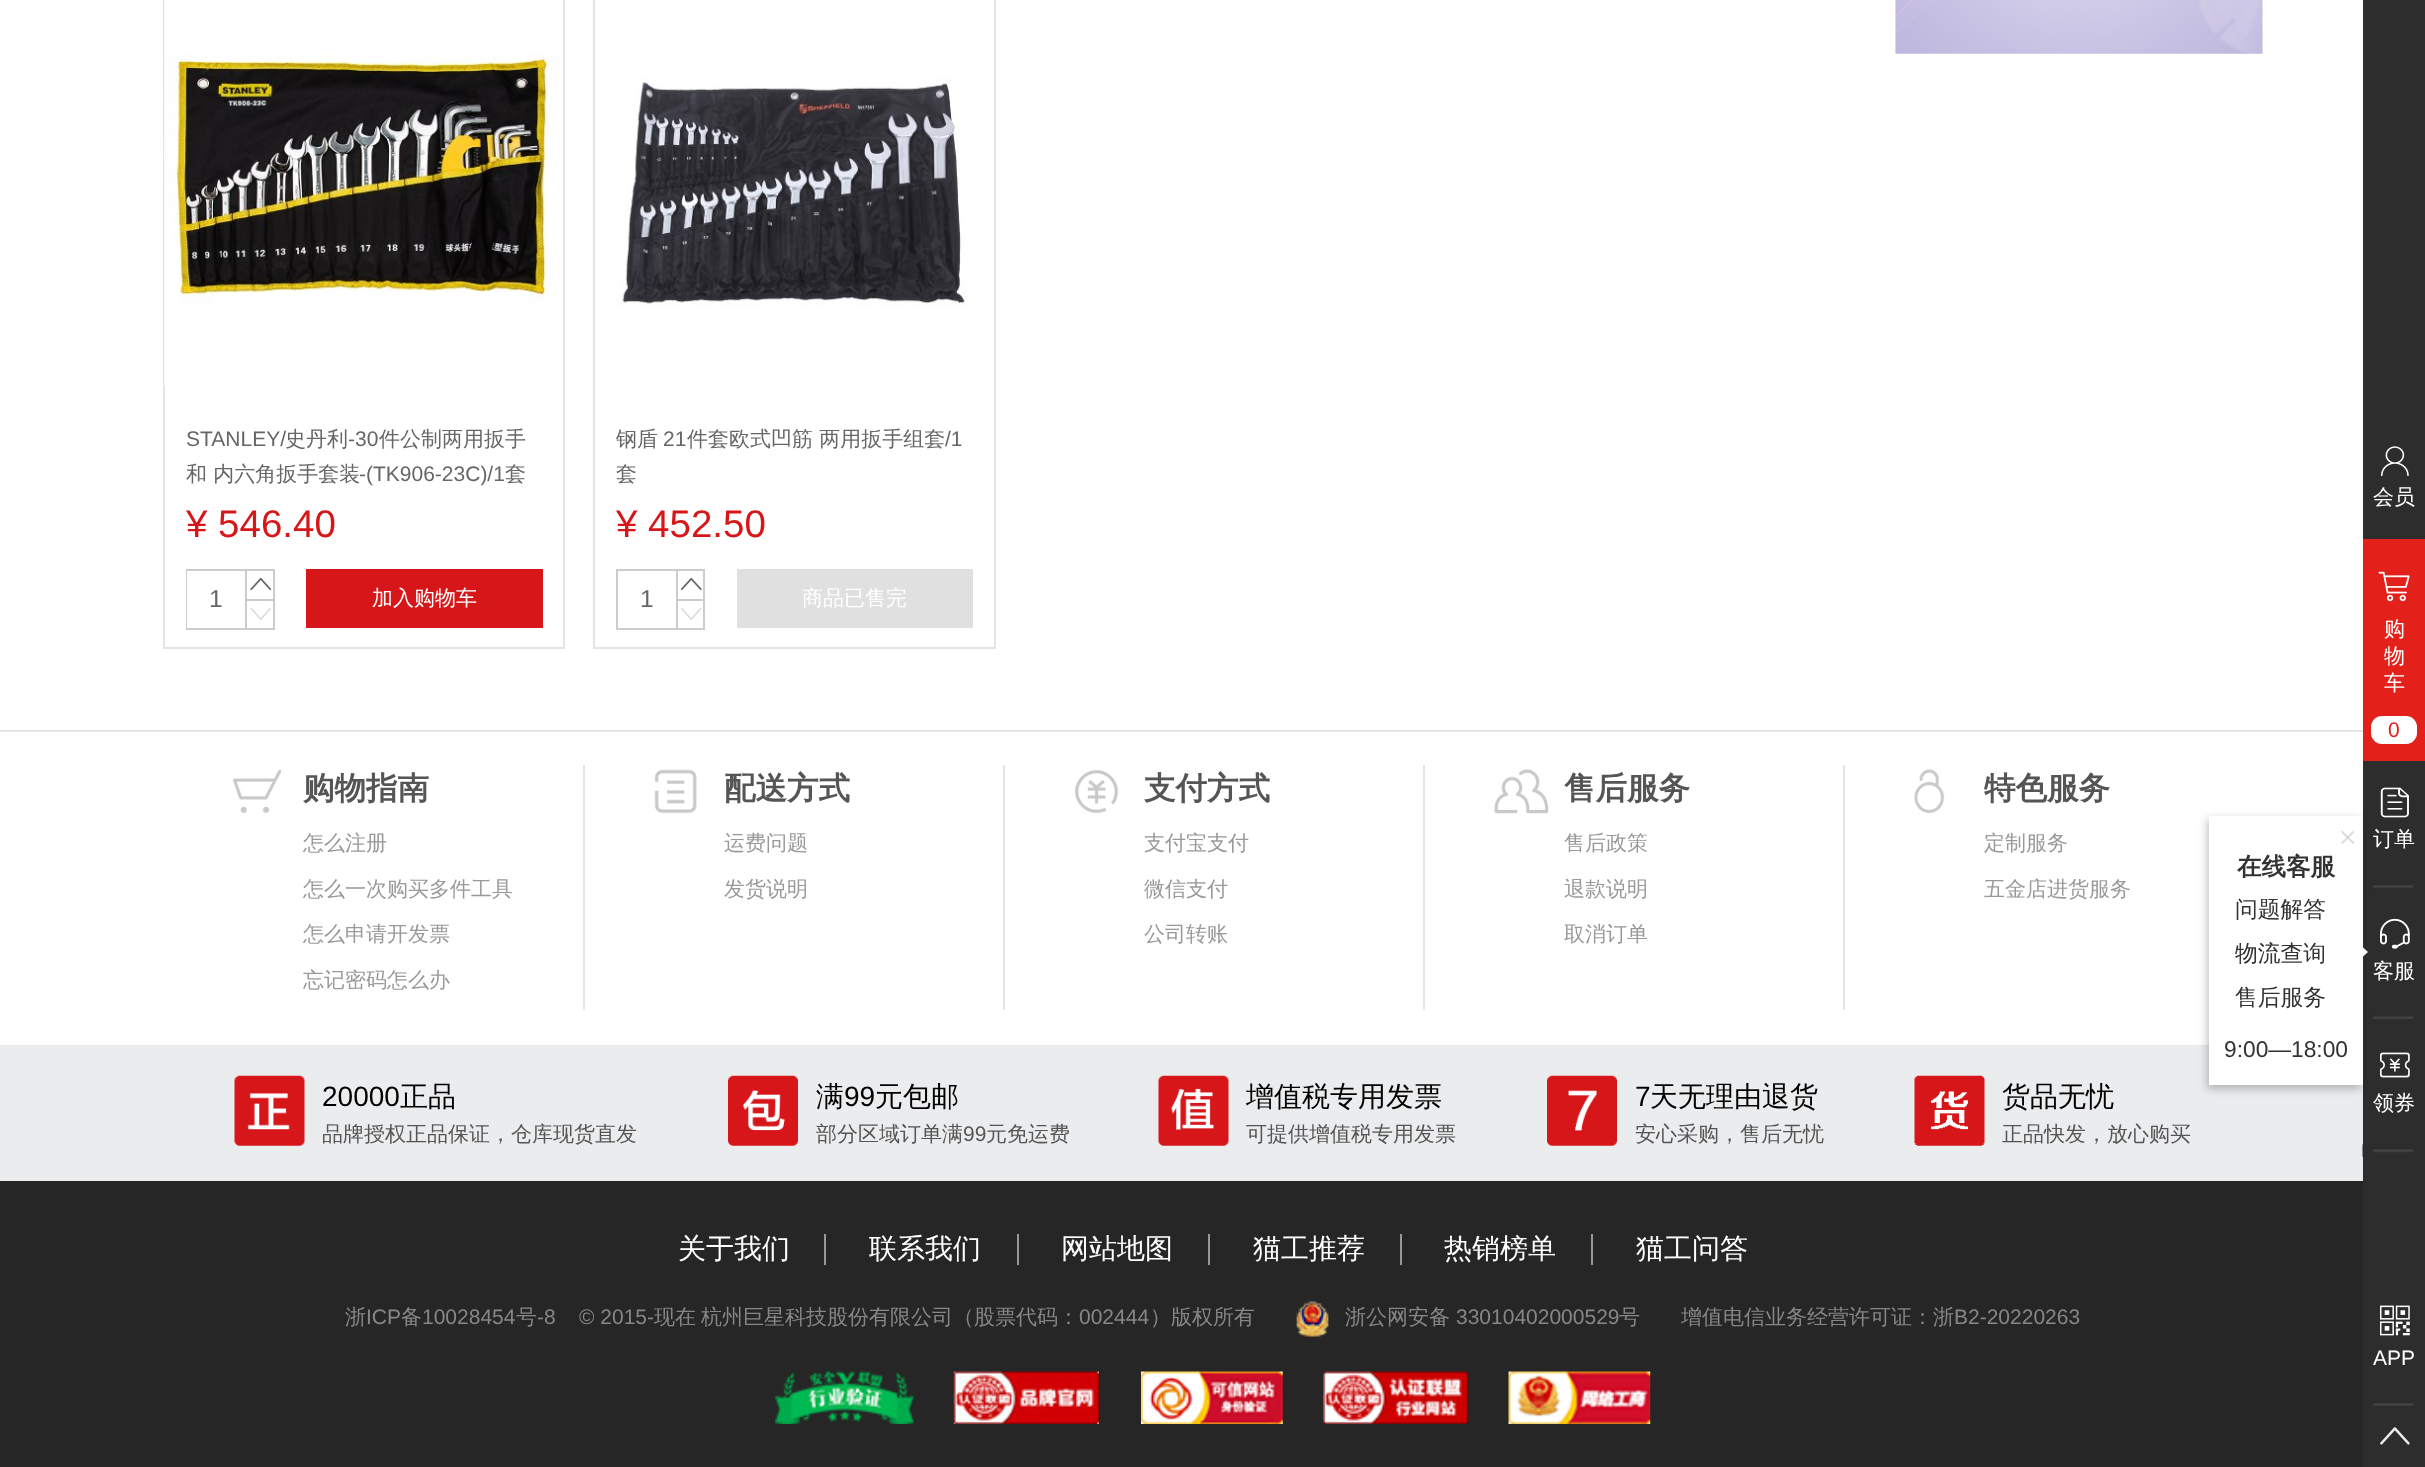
<!DOCTYPE html>
<meta charset="utf-8">
<style>body { margin: 0 } canvas { display: block }</style>
<canvas id="canvas" width="2425" height="1467"></canvas>
<script type="module">
  const canvas = document.getElementById("canvas");
  const ctx = canvas.getContext("2d");
  ctx.miterLimit = 4;
  ctx.fontKerning = "normal";
  async function loadImage(src) {
    const img = new Image();
    img.src = src;
    await img.decode();
    return img;
  }

  ctx.fillStyle = "#ffffff";
  ctx.fillRect(0, 0, 2425, 1467);
  ctx.drawImage(await loadImage("img1.png"), 1895, 0, 368, 54);
  ctx.strokeStyle = "#e4e4e4";
  ctx.lineWidth = 2;
  ctx.strokeRect(164, -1, 400, 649);
  ctx.drawImage(await loadImage("img2.png"), 164, 0, 396, 386);
  ctx.drawImage(await loadImage("img3.png"), 164, 0, 1, 386);
  ctx.font = "21px Liberation Sans";
  ctx.fillStyle = "#666666";
  ctx.fillText("STANLEY/", 186, 446);
  ctx.font = "500 21px WenQuanYi Zen Hei";
  ctx.fillText("史丹利", 285, 446);
  ctx.font = "21px Liberation Sans";
  ctx.fillText("-30", 348, 446);
  ctx.font = "500 21px WenQuanYi Zen Hei";
  ctx.fillText("件公制两用扳手", 379, 446);
  ctx.fillText("和 内六角扳手套装", 186, 481);
  ctx.font = "21px Liberation Sans";
  ctx.fillText("-(TK906-23C)/1", 359, 481);
  ctx.font = "500 21px WenQuanYi Zen Hei";
  ctx.fillText("套", 505, 481);
  ctx.font = "38.5px Liberation Sans";
  ctx.fillStyle = "#d71619";
  ctx.fillText("¥ 546.40", 186, 537);
  ctx.strokeStyle = "#cccccc";
  ctx.strokeRect(187, 570, 87, 59);
  ctx.fillStyle = "#ffffff";
  ctx.fillRect(187, 571, 1, 57);
  ctx.font = "24.5px Liberation Sans";
  ctx.fillStyle = "#666666";
  ctx.fillText("1", 209, 607);
  ctx.fillStyle = "#cccccc";
  ctx.fillRect(245, 599, 28, 2);
  ctx.fillRect(245, 571, 2, 57);
  ctx.drawImage(await loadImage("img4.png"), 250, 577, 22, 14);
  ctx.drawImage(await loadImage("img5.png"), 250, 607, 21, 13);
  ctx.fillStyle = "#d71619";
  ctx.fillRect(306, 569, 237, 59);
  ctx.font = "500 21px WenQuanYi Zen Hei";
  ctx.fillStyle = "#ffffff";
  ctx.fillText("加入购物车", 372, 605);
  ctx.strokeStyle = "#e4e4e4";
  ctx.strokeRect(594, -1, 401, 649);
  ctx.drawImage(await loadImage("img6.png"), 619, 78, 347, 229);
  ctx.fillStyle = "#666666";
  ctx.fillText("钢盾", 616, 446);
  ctx.font = "21px Liberation Sans";
  ctx.fillText("21", 663, 446);
  ctx.font = "500 21px WenQuanYi Zen Hei";
  ctx.fillText("件套欧式凹筋 两用扳手组套", 687, 446);
  ctx.font = "21px Liberation Sans";
  ctx.fillText("/1", 945, 446);
  ctx.font = "500 21px WenQuanYi Zen Hei";
  ctx.fillText("套", 616, 481);
  ctx.font = "38.5px Liberation Sans";
  ctx.fillStyle = "#d71619";
  ctx.fillText("¥ 452.50", 616, 537);
  ctx.strokeStyle = "#cccccc";
  ctx.strokeRect(617, 570, 87, 59);
  ctx.font = "24.5px Liberation Sans";
  ctx.fillStyle = "#666666";
  ctx.fillText("1", 640, 607);
  ctx.fillStyle = "#cccccc";
  ctx.fillRect(676, 599, 28, 2);
  ctx.fillRect(676, 571, 2, 57);
  ctx.drawImage(await loadImage("img7.png"), 680, 577, 22, 14);
  ctx.drawImage(await loadImage("img8.png"), 681, 607, 21, 13);
  ctx.fillStyle = "#e0e0e0";
  ctx.fillRect(737, 569, 236, 59);
  ctx.font = "500 21px WenQuanYi Zen Hei";
  ctx.fillStyle = "#ffffff";
  ctx.fillText("商品已售完", 802, 605);
  ctx.fillStyle = "#2d2d2d";
  ctx.fillRect(2363, 0, 62, 1467);
  ctx.drawImage(await loadImage("img9.png"), 2381, 446, 28, 31);
  ctx.fillStyle = "#ffffff";
  ctx.fillText("会员", 2373, 504);
  ctx.fillStyle = "#e3211a";
  ctx.fillRect(2363, 539, 62, 222);
  ctx.drawImage(await loadImage("img10.png"), 2378, 571, 32, 31);
  ctx.fillStyle = "#ffffff";
  ctx.fillText("购", 2384, 636);
  ctx.fillText("物", 2384, 663);
  ctx.fillText("车", 2384, 690);
  ctx.beginPath();
  ctx.roundRect(2371, 716, 46, 28, 11);
  ctx.fill();
  ctx.font = "21px Liberation Sans";
  ctx.fillStyle = "#e3211a";
  ctx.fillText("0", 2388, 737);
  ctx.drawImage(await loadImage("img11.png"), 2363, 880, 51, 14);
  ctx.drawImage(await loadImage("img12.png"), 2380, 787, 29, 31);
  ctx.font = "500 21px WenQuanYi Zen Hei";
  ctx.fillStyle = "#ffffff";
  ctx.fillText("订单", 2373, 846);
  ctx.drawImage(await loadImage("img13.png"), 2363, 1010, 51, 14);
  ctx.fillStyle = "#ebecee";
  ctx.fillRect(0, 1045, 2363, 136);
  ctx.fillStyle = "rgba(0, 0, 0, 0.24)";
  ctx.filter = "blur(4.5px)";
  ctx.beginPath();
  ctx.rect(2207, 819, 154, 270);
  ctx.fill();
  ctx.filter = "none";
  ctx.fillStyle = "#ffffff";
  ctx.fillRect(2209, 816, 154, 269);
  ctx.drawImage(await loadImage("img14.png"), 2341, 830, 14, 14);
  ctx.font = "bold 24.5px WenQuanYi Zen Hei";
  ctx.fillStyle = "#333333";
  ctx.fillText("在线客服", 2237, 875);
  ctx.font = "500 22.75px WenQuanYi Zen Hei";
  ctx.fillText("问题解答", 2235, 917);
  ctx.fillText("物流查询", 2235, 961);
  ctx.fillStyle = "#ffffff";
  ctx.beginPath();
  ctx.moveTo(2362.5, 957);
  ctx.lineTo(2362.5, 947);
  ctx.lineTo(2368, 952);
  ctx.closePath();
  ctx.fill();
  ctx.fillStyle = "#333333";
  ctx.fillText("售后服务", 2235, 1005);
  ctx.font = "22.75px Liberation Sans";
  ctx.fillText("9:00—18:00", 2224, 1057);
  ctx.drawImage(await loadImage("img15.png"), 2380, 918, 30, 31);
  ctx.font = "500 21px WenQuanYi Zen Hei";
  ctx.fillStyle = "#ffffff";
  ctx.fillText("客服", 2373, 978);
  ctx.drawImage(await loadImage("img16.png"), 2362, 1144, 52, 14);
  ctx.drawImage(await loadImage("img17.png"), 2380, 1052, 30, 26);
  ctx.fillText("领券", 2373, 1110);
  ctx.drawImage(await loadImage("img18.png"), 2373, 1403, 41, 3);
  ctx.drawImage(await loadImage("img19.png"), 2380, 1305, 30, 31);
  ctx.font = "21px Liberation Sans";
  ctx.fillText("APP", 2373, 1365);
  ctx.drawImage(await loadImage("img20.png"), 2380, 1427, 30, 18);
  ctx.fillStyle = "#e5e5e5";
  ctx.fillRect(0, 730, 2363, 2);
  ctx.fillRect(583, 765, 2, 245);
  ctx.drawImage(await loadImage("img21.png"), 232, 769, 50, 45);
  ctx.font = "bold 31.5px WenQuanYi Zen Hei";
  ctx.fillStyle = "#555555";
  ctx.fillText("购物指南", 303, 799);
  ctx.font = "500 21px WenQuanYi Zen Hei";
  ctx.fillStyle = "#999999";
  ctx.fillText("怎么注册", 303, 850);
  ctx.fillText("怎么一次购买多件工具", 303, 896);
  ctx.fillText("怎么申请开发票", 303, 941);
  ctx.fillText("忘记密码怎么办", 303, 987);
  ctx.fillStyle = "#e5e5e5";
  ctx.fillRect(1003, 765, 2, 245);
  ctx.drawImage(await loadImage("img22.png"), 654, 769, 43, 45);
  ctx.font = "bold 31.5px WenQuanYi Zen Hei";
  ctx.fillStyle = "#555555";
  ctx.fillText("配送方式", 724, 799);
  ctx.font = "500 21px WenQuanYi Zen Hei";
  ctx.fillStyle = "#999999";
  ctx.fillText("运费问题", 724, 850);
  ctx.fillText("发货说明", 724, 896);
  ctx.fillStyle = "#e5e5e5";
  ctx.fillRect(1423, 765, 2, 245);
  ctx.drawImage(await loadImage("img23.png"), 1074, 770, 45, 44);
  ctx.font = "bold 31.5px WenQuanYi Zen Hei";
  ctx.fillStyle = "#555555";
  ctx.fillText("支付方式", 1144, 799);
  ctx.font = "500 21px WenQuanYi Zen Hei";
  ctx.fillStyle = "#999999";
  ctx.fillText("支付宝支付", 1144, 850);
  ctx.fillText("微信支付", 1144, 896);
  ctx.fillText("公司转账", 1144, 941);
  ctx.fillStyle = "#e5e5e5";
  ctx.fillRect(1843, 765, 2, 245);
  ctx.drawImage(await loadImage("img24.png"), 1494, 769, 55, 45);
  ctx.font = "bold 31.5px WenQuanYi Zen Hei";
  ctx.fillStyle = "#555555";
  ctx.fillText("售后服务", 1564, 799);
  ctx.font = "500 21px WenQuanYi Zen Hei";
  ctx.fillStyle = "#999999";
  ctx.fillText("售后政策", 1564, 850);
  ctx.fillText("退款说明", 1564, 896);
  ctx.fillText("取消订单", 1564, 941);
  ctx.drawImage(await loadImage("img25.png"), 1914, 769, 31, 45);
  ctx.font = "bold 31.5px WenQuanYi Zen Hei";
  ctx.fillStyle = "#555555";
  ctx.fillText("特色服务", 1984, 799);
  ctx.font = "500 21px WenQuanYi Zen Hei";
  ctx.fillStyle = "#999999";
  ctx.fillText("定制服务", 1984, 850);
  ctx.fillText("五金店进货服务", 1984, 896);
  ctx.drawImage(await loadImage("img26.png"), 234, 1075, 71, 71);
  ctx.font = "28px Liberation Sans";
  ctx.fillStyle = "#000000";
  ctx.fillText("20000", 322, 1106);
  ctx.font = "500 28px WenQuanYi Zen Hei";
  ctx.fillText("正品", 400, 1106);
  ctx.font = "500 21px WenQuanYi Zen Hei";
  ctx.fillStyle = "#555555";
  ctx.fillText("品牌授权正品保证，仓库现货直发", 322, 1141);
  ctx.drawImage(await loadImage("img27.png"), 728, 1075, 70, 71);
  ctx.font = "500 28px WenQuanYi Zen Hei";
  ctx.fillStyle = "#000000";
  ctx.fillText("满", 816, 1106);
  ctx.font = "28px Liberation Sans";
  ctx.fillText("99", 844, 1106);
  ctx.font = "500 28px WenQuanYi Zen Hei";
  ctx.fillText("元包邮", 875, 1106);
  ctx.font = "500 21px WenQuanYi Zen Hei";
  ctx.fillStyle = "#555555";
  ctx.fillText("部分区域订单满", 816, 1141);
  ctx.font = "21px Liberation Sans";
  ctx.fillText("99", 963, 1141);
  ctx.font = "500 21px WenQuanYi Zen Hei";
  ctx.fillText("元免运费", 986, 1141);
  ctx.drawImage(await loadImage("img28.png"), 1158, 1075, 71, 71);
  ctx.font = "500 28px WenQuanYi Zen Hei";
  ctx.fillStyle = "#000000";
  ctx.fillText("增值税专用发票", 1246, 1106);
  ctx.font = "500 21px WenQuanYi Zen Hei";
  ctx.fillStyle = "#555555";
  ctx.fillText("可提供增值税专用发票", 1246, 1141);
  ctx.drawImage(await loadImage("img29.png"), 1547, 1075, 70, 71);
  ctx.font = "28px Liberation Sans";
  ctx.fillStyle = "#000000";
  ctx.fillText("7", 1635, 1106);
  ctx.font = "500 28px WenQuanYi Zen Hei";
  ctx.fillText("天无理由退货", 1650, 1106);
  ctx.font = "500 21px WenQuanYi Zen Hei";
  ctx.fillStyle = "#555555";
  ctx.fillText("安心采购，售后无忧", 1635, 1141);
  ctx.drawImage(await loadImage("img30.png"), 1914, 1075, 71, 71);
  ctx.font = "500 28px WenQuanYi Zen Hei";
  ctx.fillStyle = "#000000";
  ctx.fillText("货品无忧", 2002, 1106);
  ctx.font = "500 21px WenQuanYi Zen Hei";
  ctx.fillStyle = "#555555";
  ctx.fillText("正品快发，放心购买", 2002, 1141);
  ctx.fillStyle = "#262626";
  ctx.fillRect(0, 1181, 2363, 286);
  ctx.fillStyle = "#999999";
  ctx.fillRect(824, 1234, 2, 31);
  ctx.font = "500 28px WenQuanYi Zen Hei";
  ctx.fillStyle = "#ffffff";
  ctx.fillText("关于我们", 678, 1258);
  ctx.fillStyle = "#999999";
  ctx.fillRect(1017, 1234, 2, 31);
  ctx.fillStyle = "#ffffff";
  ctx.fillText("联系我们", 869, 1258);
  ctx.fillStyle = "#999999";
  ctx.fillRect(1208, 1234, 2, 31);
  ctx.fillStyle = "#ffffff";
  ctx.fillText("网站地图", 1061, 1258);
  ctx.fillStyle = "#999999";
  ctx.fillRect(1400, 1234, 2, 31);
  ctx.fillStyle = "#ffffff";
  ctx.fillText("猫工推荐", 1253, 1258);
  ctx.fillStyle = "#999999";
  ctx.fillRect(1591, 1234, 2, 31);
  ctx.fillStyle = "#ffffff";
  ctx.fillText("热销榜单", 1444, 1258);
  ctx.fillText("猫工问答", 1636, 1258);
  ctx.font = "500 21px WenQuanYi Zen Hei";
  ctx.fillStyle = "#878787";
  ctx.fillText("浙", 345, 1324);
  ctx.font = "21px Liberation Sans";
  ctx.fillText("ICP", 366, 1324);
  ctx.font = "500 21px WenQuanYi Zen Hei";
  ctx.fillText("备", 401, 1324);
  ctx.font = "21px Liberation Sans";
  ctx.fillText("10028454", 422, 1324);
  ctx.font = "500 21px WenQuanYi Zen Hei";
  ctx.fillText("号", 516, 1324);
  ctx.font = "21px Liberation Sans";
  ctx.fillText("-8", 537, 1324);
  ctx.fillText("© 2015-", 579, 1324);
  ctx.font = "500 21px WenQuanYi Zen Hei";
  ctx.fillText("现在", 654, 1324);
  ctx.fillText("杭州巨星科技股份有限公司（股票代码：", 701, 1324);
  ctx.font = "21px Liberation Sans";
  ctx.fillText("002444", 1079, 1324);
  ctx.font = "500 21px WenQuanYi Zen Hei";
  ctx.fillText("）版权所有", 1150, 1324);
  ctx.drawImage(await loadImage("img31.png"), 1296, 1301, 33, 36);
  ctx.fillText("浙公网安备", 1345, 1324);
  ctx.font = "21px Liberation Sans";
  ctx.fillText("33010402000529", 1456, 1324);
  ctx.font = "500 21px WenQuanYi Zen Hei";
  ctx.fillText("号", 1619, 1324);
  ctx.fillText("增值电信业务经营许可证：浙", 1681, 1324);
  ctx.font = "21px Liberation Sans";
  ctx.fillText("B2-20220263", 1954, 1324);
  ctx.drawImage(await loadImage("img32.png"), 775, 1371, 139, 53);
  ctx.drawImage(await loadImage("img33.png"), 953, 1371, 146, 53);
  ctx.drawImage(await loadImage("img34.png"), 1141, 1371, 142, 53);
  ctx.drawImage(await loadImage("img35.png"), 1323, 1371, 146, 53);
  ctx.drawImage(await loadImage("img36.png"), 1508, 1371, 143, 53);
</script>
